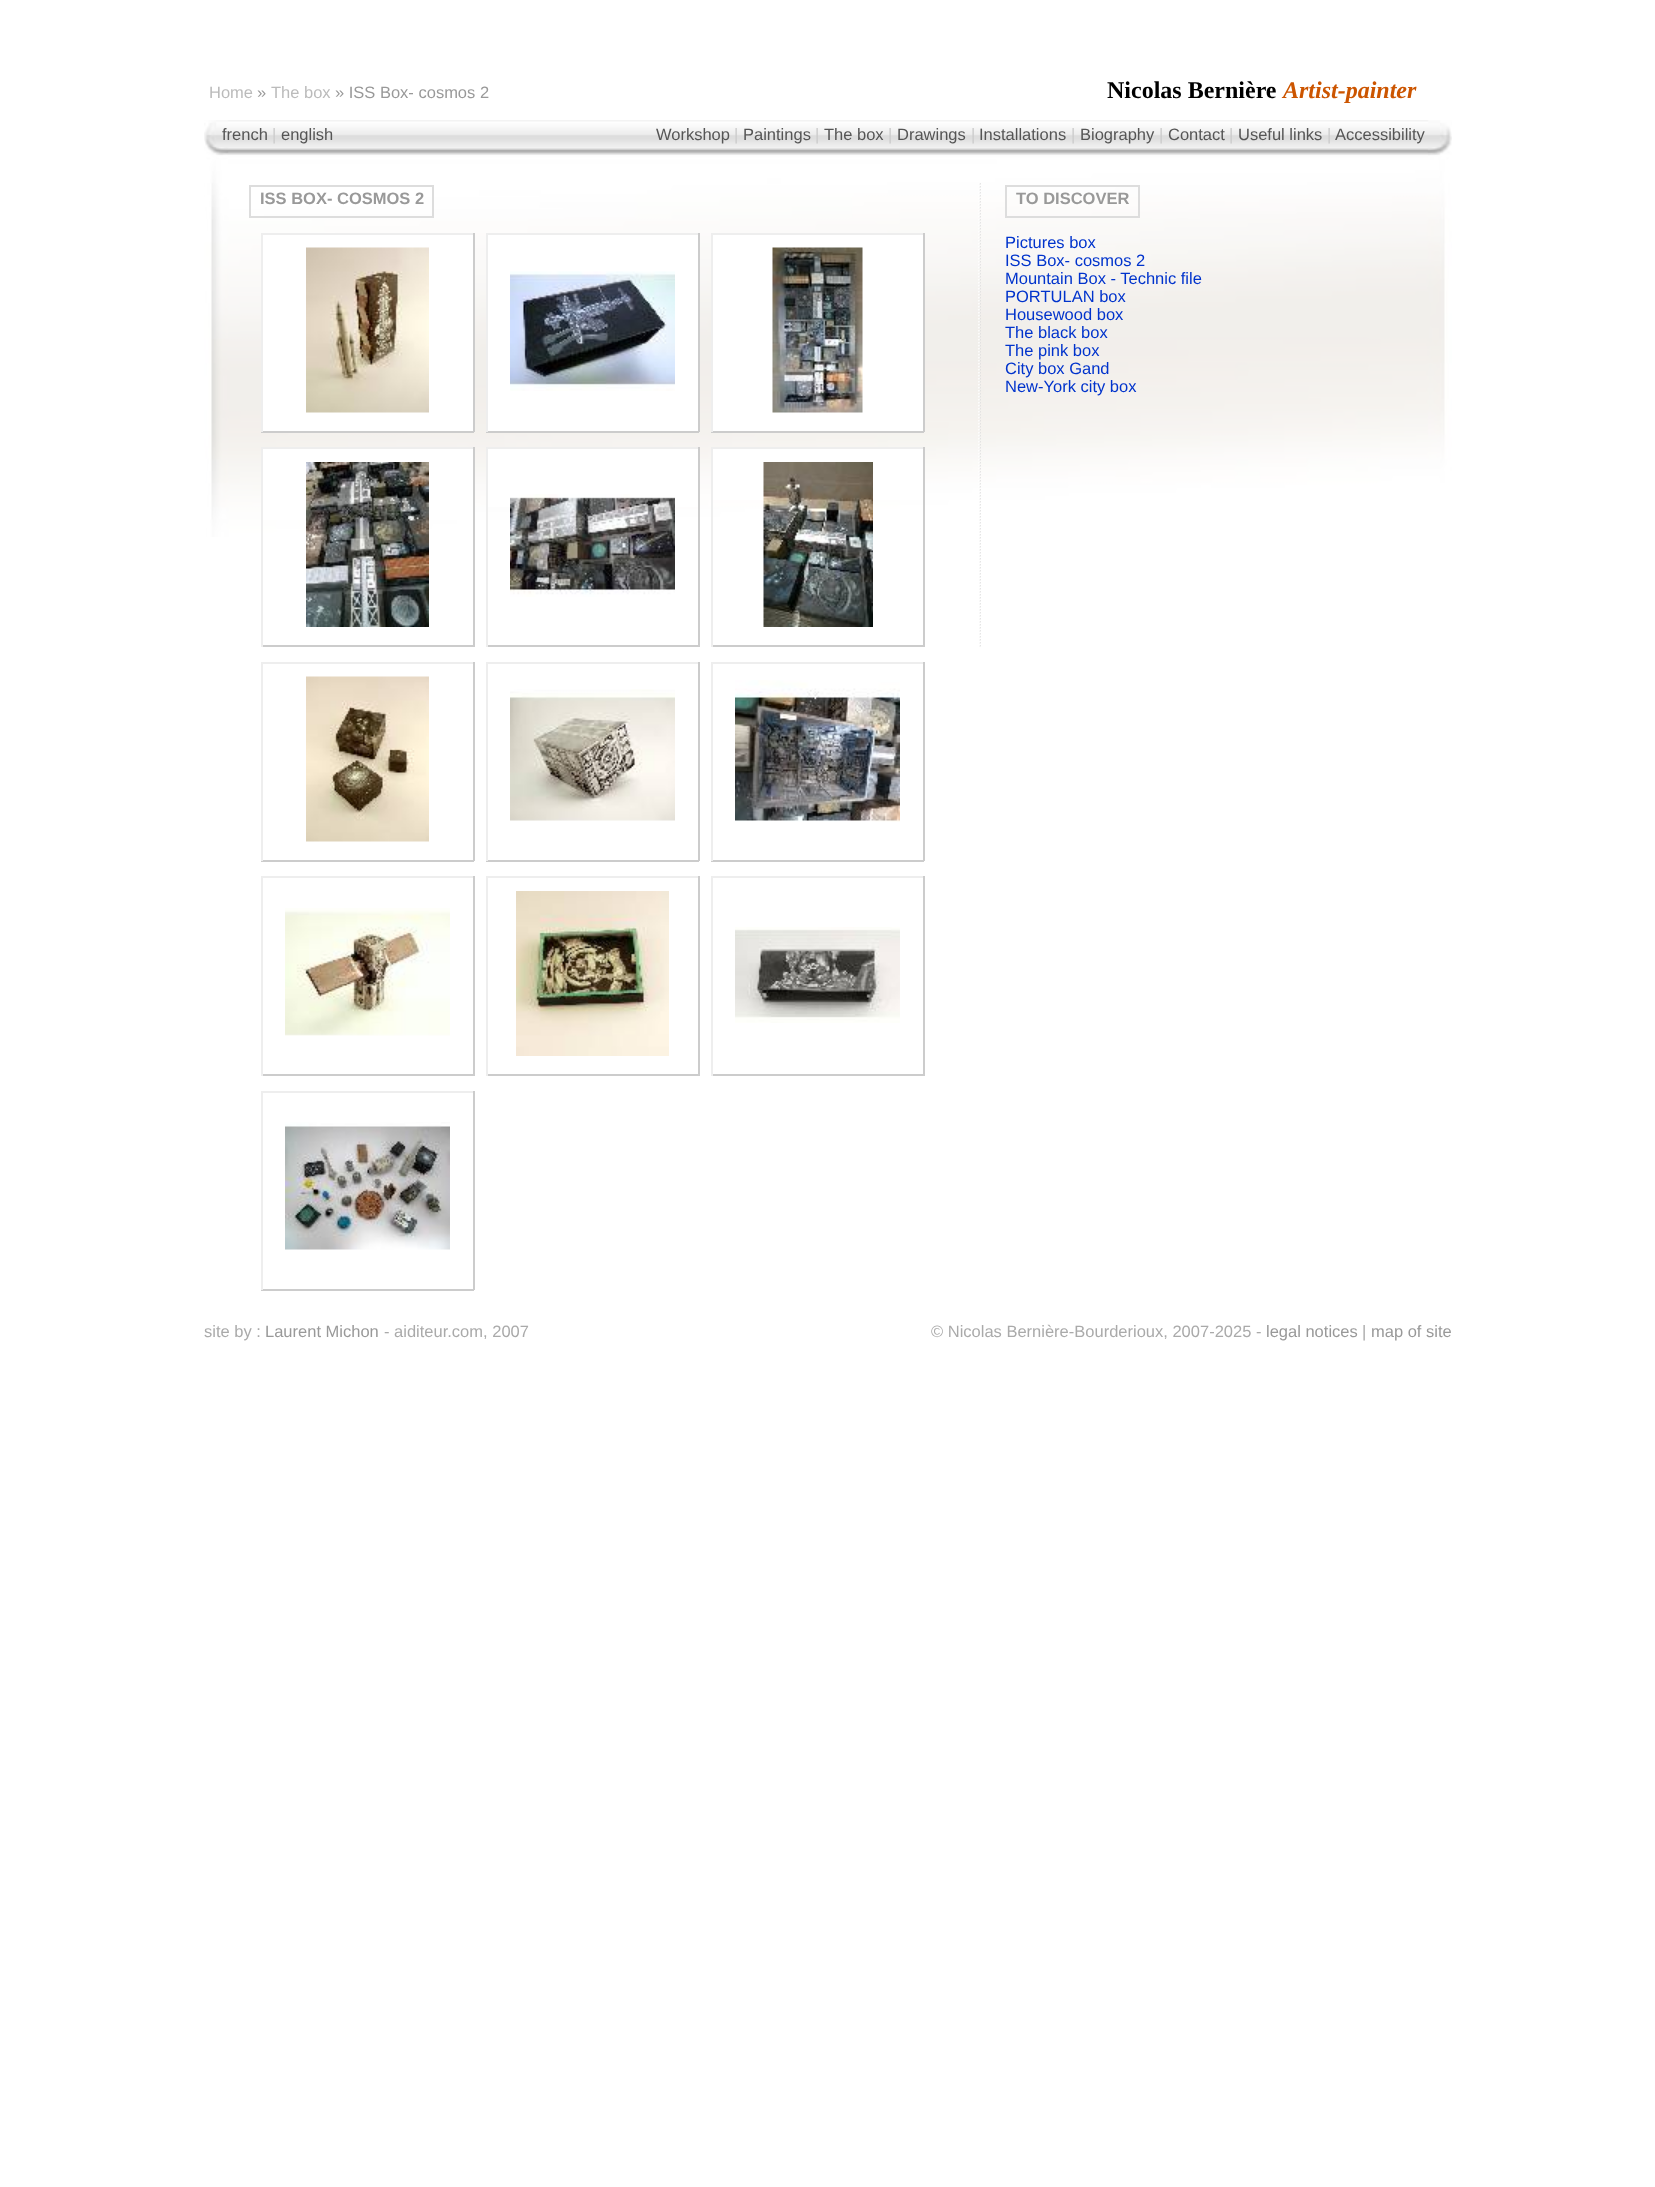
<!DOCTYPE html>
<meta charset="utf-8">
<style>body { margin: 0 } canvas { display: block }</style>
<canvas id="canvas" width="1655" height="2187"></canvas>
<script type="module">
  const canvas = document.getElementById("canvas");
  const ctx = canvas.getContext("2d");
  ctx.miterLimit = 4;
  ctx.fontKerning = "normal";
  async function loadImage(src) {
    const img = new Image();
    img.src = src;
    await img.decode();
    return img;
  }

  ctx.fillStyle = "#ffffff";
  ctx.fillRect(0, 0, 1655, 2187);
  ctx.drawImage(await loadImage("img1.png"), 204, 120, 1248, 417);
  ctx.font = "16.5px Liberation Sans";
  ctx.fillStyle = "#bbbbbb";
  ctx.fillText("Home", 209, 98);
  ctx.fillStyle = "#999999";
  ctx.fillText("»", 257, 98);
  ctx.fillStyle = "#bbbbbb";
  ctx.fillText("The box", 271, 98);
  ctx.fillStyle = "#999999";
  ctx.fillText("» ISS Box- cosmos 2", 335, 98);
  ctx.font = "bold 24px Liberation Serif";
  ctx.fillStyle = "#000000";
  ctx.fillText("Nicolas Bernière", 1107, 98);
  ctx.font = "italic bold 24px Liberation Serif";
  ctx.fillStyle = "#cc5500";
  ctx.fillText("Artist-painter", 1283, 98);
  ctx.font = "16.5px Liberation Sans";
  ctx.fillStyle = "#555555";
  ctx.fillText("french", 222, 140);
  ctx.fillStyle = "#cccccc";
  ctx.fillText("|", 272, 140);
  ctx.fillStyle = "#555555";
  ctx.fillText("english", 281, 140);
  ctx.fillText("Workshop", 656, 140);
  ctx.fillStyle = "#cccccc";
  ctx.fillText("|", 734, 140);
  ctx.fillStyle = "#555555";
  ctx.fillText("Paintings", 743, 140);
  ctx.fillStyle = "#cccccc";
  ctx.fillText("|", 815, 140);
  ctx.fillStyle = "#555555";
  ctx.fillText("The box", 824, 140);
  ctx.fillStyle = "#cccccc";
  ctx.fillText("|", 888, 140);
  ctx.fillStyle = "#555555";
  ctx.fillText("Drawings", 897, 140);
  ctx.fillStyle = "#cccccc";
  ctx.fillText("|", 971, 140);
  ctx.fillStyle = "#555555";
  ctx.fillText("Installations", 979, 140);
  ctx.fillStyle = "#cccccc";
  ctx.fillText("|", 1071, 140);
  ctx.fillStyle = "#555555";
  ctx.fillText("Biography", 1080, 140);
  ctx.fillStyle = "#cccccc";
  ctx.fillText("|", 1159, 140);
  ctx.fillStyle = "#555555";
  ctx.fillText("Contact", 1168, 140);
  ctx.fillStyle = "#cccccc";
  ctx.fillText("|", 1229, 140);
  ctx.fillStyle = "#555555";
  ctx.fillText("Useful links", 1238, 140);
  ctx.fillStyle = "#cccccc";
  ctx.fillText("|", 1327, 140);
  ctx.fillStyle = "#555555";
  ctx.fillText("Accessibility", 1335, 140);
  ctx.strokeStyle = "#dddddd";
  ctx.lineWidth = 2;
  ctx.strokeRect(250, 186, 183, 31);
  ctx.font = "bold 16.5px Liberation Sans";
  ctx.fillStyle = "#999999";
  ctx.fillText("ISS BOX- COSMOS 2", 260, 204);
  ctx.fillStyle = "#ffffff";
  ctx.fillRect(263, 235, 210, 196);
  ctx.fillStyle = "#eeeeee";
  ctx.fillRect(261, 233, 213, 2);
  ctx.fillStyle = "#cccccc";
  ctx.fillRect(473, 233, 2, 199);
  ctx.fillRect(261, 431, 213, 2);
  ctx.fillStyle = "#eeeeee";
  ctx.fillRect(261, 233, 2, 199);
  ctx.drawImage(await loadImage("img2.png"), 306, 247, 123, 166);
  ctx.fillStyle = "#ffffff";
  ctx.fillRect(488, 235, 210, 196);
  ctx.fillStyle = "#eeeeee";
  ctx.fillRect(486, 233, 213, 2);
  ctx.fillStyle = "#cccccc";
  ctx.fillRect(698, 233, 2, 199);
  ctx.fillRect(486, 431, 213, 2);
  ctx.fillStyle = "#eeeeee";
  ctx.fillRect(486, 233, 2, 199);
  ctx.drawImage(await loadImage("img3.png"), 510, 271, 165, 120);
  ctx.fillStyle = "#ffffff";
  ctx.fillRect(713, 235, 210, 196);
  ctx.fillStyle = "#eeeeee";
  ctx.fillRect(711, 233, 213, 2);
  ctx.fillStyle = "#cccccc";
  ctx.fillRect(923, 233, 2, 199);
  ctx.fillRect(711, 431, 213, 2);
  ctx.fillStyle = "#eeeeee";
  ctx.fillRect(711, 233, 2, 199);
  ctx.drawImage(await loadImage("img4.png"), 772, 247, 91, 166);
  ctx.fillStyle = "#ffffff";
  ctx.fillRect(263, 449, 210, 71);
  ctx.fillStyle = "#eeeeee";
  ctx.fillRect(261, 447, 213, 2);
  ctx.fillStyle = "#cccccc";
  ctx.fillRect(473, 447, 2, 200);
  ctx.fillRect(261, 645, 213, 2);
  ctx.fillStyle = "#eeeeee";
  ctx.fillRect(261, 447, 2, 200);
  ctx.drawImage(await loadImage("img5.png"), 306, 462, 123, 165);
  ctx.fillStyle = "#ffffff";
  ctx.fillRect(488, 449, 210, 58);
  ctx.fillStyle = "#eeeeee";
  ctx.fillRect(486, 447, 213, 2);
  ctx.fillStyle = "#cccccc";
  ctx.fillRect(698, 447, 2, 200);
  ctx.fillRect(486, 645, 213, 2);
  ctx.fillStyle = "#eeeeee";
  ctx.fillRect(486, 447, 2, 200);
  ctx.drawImage(await loadImage("img6.png"), 510, 494, 165, 103);
  ctx.fillStyle = "#ffffff";
  ctx.fillRect(713, 449, 210, 51);
  ctx.fillStyle = "#eeeeee";
  ctx.fillRect(711, 447, 213, 2);
  ctx.fillStyle = "#cccccc";
  ctx.fillRect(923, 447, 2, 200);
  ctx.fillRect(711, 645, 213, 2);
  ctx.fillStyle = "#eeeeee";
  ctx.fillRect(711, 447, 2, 200);
  ctx.drawImage(await loadImage("img7.png"), 763, 462, 110, 165);
  ctx.fillRect(261, 662, 213, 2);
  ctx.fillStyle = "#cccccc";
  ctx.fillRect(473, 662, 2, 199);
  ctx.fillRect(261, 860, 213, 2);
  ctx.fillStyle = "#eeeeee";
  ctx.fillRect(261, 662, 2, 199);
  ctx.drawImage(await loadImage("img8.png"), 306, 676, 123, 166);
  ctx.fillRect(486, 662, 213, 2);
  ctx.fillStyle = "#cccccc";
  ctx.fillRect(698, 662, 2, 199);
  ctx.fillRect(486, 860, 213, 2);
  ctx.fillStyle = "#eeeeee";
  ctx.fillRect(486, 662, 2, 199);
  ctx.drawImage(await loadImage("img9.png"), 510, 689, 165, 132);
  ctx.fillRect(711, 662, 213, 2);
  ctx.fillStyle = "#cccccc";
  ctx.fillRect(923, 662, 2, 199);
  ctx.fillRect(711, 860, 213, 2);
  ctx.fillStyle = "#eeeeee";
  ctx.fillRect(711, 662, 2, 199);
  ctx.drawImage(await loadImage("img10.png"), 735, 680, 165, 142);
  ctx.fillRect(261, 876, 213, 2);
  ctx.fillStyle = "#cccccc";
  ctx.fillRect(473, 876, 2, 200);
  ctx.fillRect(261, 1074, 213, 2);
  ctx.fillStyle = "#eeeeee";
  ctx.fillRect(261, 876, 2, 200);
  ctx.drawImage(await loadImage("img11.png"), 285, 908, 165, 128);
  ctx.fillRect(486, 876, 213, 2);
  ctx.fillStyle = "#cccccc";
  ctx.fillRect(698, 876, 2, 200);
  ctx.fillRect(486, 1074, 213, 2);
  ctx.fillStyle = "#eeeeee";
  ctx.fillRect(486, 876, 2, 200);
  ctx.drawImage(await loadImage("img12.png"), 516, 891, 153, 165);
  ctx.fillRect(711, 876, 213, 2);
  ctx.fillStyle = "#cccccc";
  ctx.fillRect(923, 876, 2, 200);
  ctx.fillRect(711, 1074, 213, 2);
  ctx.fillStyle = "#eeeeee";
  ctx.fillRect(711, 876, 2, 200);
  ctx.drawImage(await loadImage("img13.png"), 735, 927, 165, 96);
  ctx.fillRect(261, 1091, 213, 2);
  ctx.fillStyle = "#cccccc";
  ctx.fillRect(473, 1091, 2, 199);
  ctx.fillRect(261, 1289, 213, 2);
  ctx.fillStyle = "#eeeeee";
  ctx.fillRect(261, 1091, 2, 199);
  ctx.drawImage(await loadImage("img14.png"), 285, 1122, 165, 128);
  ctx.beginPath();
  ctx.moveTo(980, 183);
  ctx.lineTo(980, 648);
  ctx.lineWidth = 1.5;
  ctx.setLineDash([1.5, 1.5]);
  ctx.stroke();
  ctx.beginPath();
  ctx.moveTo(979, 183);
  ctx.lineTo(979, 648);
  ctx.strokeStyle = "#ffffff";
  ctx.stroke();
  ctx.strokeStyle = "#dddddd";
  ctx.lineWidth = 2;
  ctx.setLineDash([]);
  ctx.strokeRect(1006, 186, 133, 31);
  ctx.fillStyle = "#999999";
  ctx.fillText("TO DISCOVER", 1016, 204);
  ctx.font = "16.5px Liberation Sans";
  ctx.fillStyle = "#0033cc";
  ctx.fillText("Pictures box", 1005, 248);
  ctx.fillText("ISS Box- cosmos 2", 1005, 266);
  ctx.fillText("Mountain Box - Technic file", 1005, 284);
  ctx.fillText("PORTULAN box", 1005, 302);
  ctx.fillText("Housewood box", 1005, 320);
  ctx.fillText("The black box", 1005, 338);
  ctx.fillText("The pink box", 1005, 356);
  ctx.fillText("City box Gand", 1005, 374);
  ctx.fillText("New-York city box", 1005, 392);
  ctx.fillStyle = "#aaaaaa";
  ctx.fillText("site by :", 204, 1337);
  ctx.fillStyle = "#999999";
  ctx.fillText("Laurent Michon", 265, 1337);
  ctx.fillStyle = "#aaaaaa";
  ctx.fillText("- aiditeur.com, 2007", 384, 1337);
  ctx.fillText("© Nicolas Bernière-Bourderioux, 2007-2025 -", 931, 1337);
  ctx.fillStyle = "#999999";
  ctx.fillText("legal notices", 1266, 1337);
  ctx.fillStyle = "#aaaaaa";
  ctx.fillText("|", 1362, 1337);
  ctx.fillStyle = "#999999";
  ctx.fillText("map of site", 1371, 1337);
</script>
